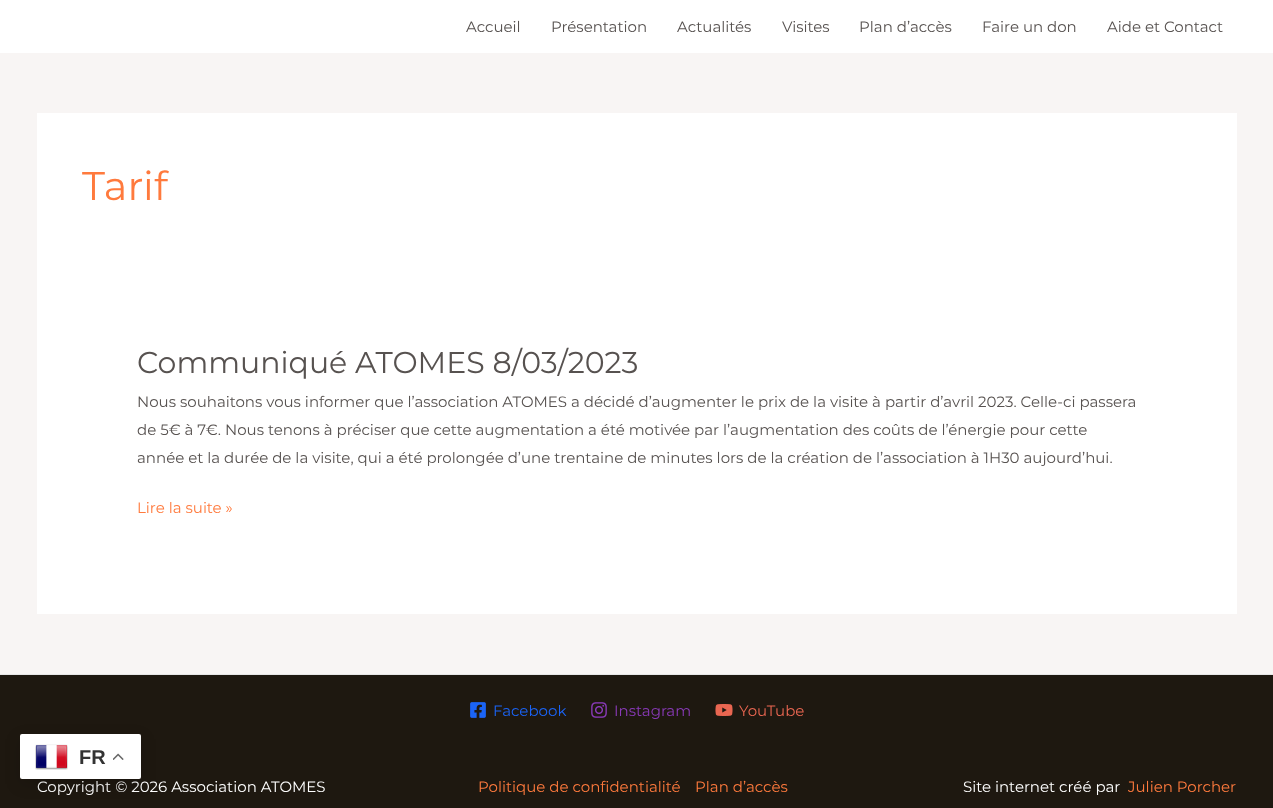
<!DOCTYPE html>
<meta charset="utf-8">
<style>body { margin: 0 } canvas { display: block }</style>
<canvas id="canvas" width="1273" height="808"></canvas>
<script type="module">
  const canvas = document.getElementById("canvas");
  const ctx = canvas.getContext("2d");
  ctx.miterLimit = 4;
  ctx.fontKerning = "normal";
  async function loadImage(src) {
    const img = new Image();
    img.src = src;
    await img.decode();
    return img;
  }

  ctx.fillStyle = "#f8f5f4";
  ctx.fillRect(0, 0, 1273, 808);
  ctx.fillStyle = "#ffffff";
  ctx.fillRect(0, 0, 1273, 53);
  ctx.font = "15px Montserrat";
  ctx.fillStyle = "#575250";
  ctx.fillText("Accueil", 466, 32);
  ctx.fillText("Présentation", 551, 32);
  ctx.fillText("Actualités", 677, 32);
  ctx.fillText("Visites", 782, 32);
  ctx.fillText("Plan d’accès", 859, 32);
  ctx.fillText("Faire un don", 982, 32);
  ctx.fillText("Aide et Contact", 1107, 32);
  ctx.fillStyle = "#ffffff";
  ctx.fillRect(37, 113, 1200, 501);
  ctx.font = "40px Montserrat";
  ctx.fillStyle = "#ff7a3d";
  ctx.fillText("Tarif", 82, 200);
  ctx.font = "30px Montserrat";
  ctx.fillStyle = "#575250";
  ctx.fillText("Communiqué ATOMES 8/03/2023", 137, 373);
  ctx.font = "15px Montserrat";
  ctx.fillText("Nous souhaitons vous informer que l’association ATOMES a décidé d’augmenter le prix de la visite à partir d’avril 2023. Celle-ci passera", 137, 407);
  ctx.fillText("de 5€ à 7€. Nous tenons à préciser que cette augmentation a été motivée par l’augmentation des coûts de l’énergie pour cette", 137, 435);
  ctx.fillText("année et la durée de la visite, qui a été prolongée d’une trentaine de minutes lors de la création de l’association à 1H30 aujourd’hui.", 137, 463);
  ctx.fillStyle = "#ff7a3d";
  ctx.fillText("Lire la suite »", 137, 513);
  ctx.fillStyle = "#1e1810";
  ctx.fillRect(0, 675, 1273, 133);
  ctx.fillStyle = "#e6e6e6";
  ctx.fillRect(0, 674, 1273, 1);
  ctx.drawImage(await loadImage("img1.png"), 470, 702, 16, 16);
  ctx.fillStyle = "#1b64f6";
  ctx.fillText("Facebook", 493, 716);
  ctx.drawImage(await loadImage("img2.png"), 591, 702, 16, 16);
  ctx.fillStyle = "#8a3ab9";
  ctx.fillText("Instagram", 614, 716);
  ctx.drawImage(await loadImage("img3.png"), 715, 704, 18, 12);
  ctx.fillStyle = "#e96651";
  ctx.fillText("YouTube", 739, 716);
  ctx.fillStyle = "#ffffff";
  ctx.fillText("Copyright © 2026 Association ATOMES", 37, 792);
  ctx.fillStyle = "#ff7a3d";
  ctx.fillText("Politique de confidentialité", 478, 792);
  ctx.fillText("Plan d’accès", 695, 792);
  ctx.fillStyle = "#ffffff";
  ctx.fillText("Site internet créé par", 963, 792);
  ctx.fillStyle = "#ff7a3d";
  ctx.fillText("Julien Porcher", 1128, 792);
  ctx.fillStyle = "rgba(0, 0, 0, 0.15)";
  ctx.filter = "blur(7.5px)";
  ctx.beginPath();
  ctx.roundRect(20, 739, 121, 45, 2);
  ctx.fill();
  ctx.filter = "none";
  ctx.fillStyle = "#ffffff";
  ctx.beginPath();
  ctx.roundRect(20, 734, 121, 45, 2);
  ctx.fill();
  ctx.drawImage(await loadImage("img4.png"), 35, 744, 33, 26);
  ctx.font = "bold 20px Liberation Sans";
  ctx.fillStyle = "#333333";
  ctx.fillText("FR", 79, 764);
  ctx.drawImage(await loadImage("img5.png"), 113, 753, 11, 7);
</script>
